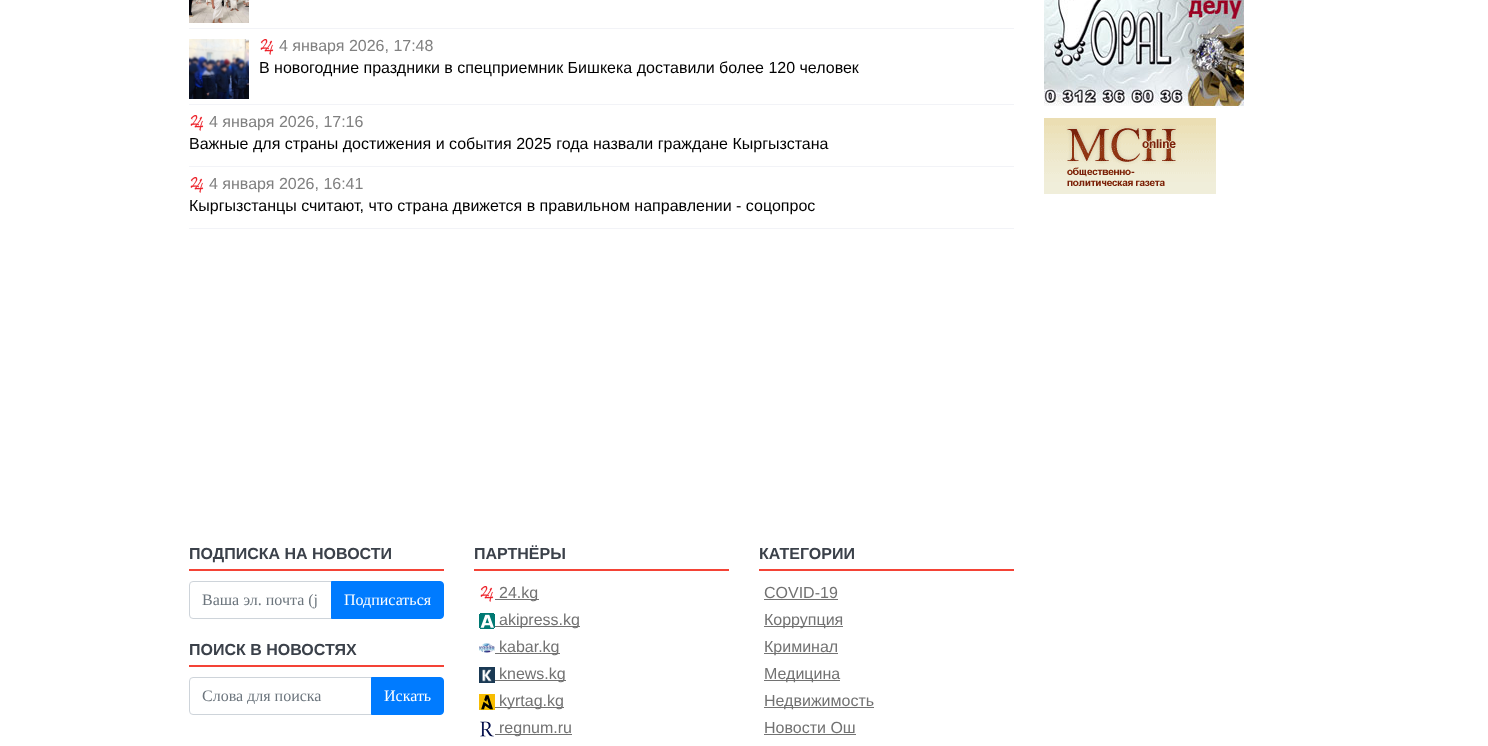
<!DOCTYPE html>
<meta charset="utf-8">
<style>body { margin: 0 } canvas { display: block }</style>
<canvas id="canvas" width="1488" height="746"></canvas>
<script type="module">
  const canvas = document.getElementById("canvas");
  const ctx = canvas.getContext("2d");
  ctx.miterLimit = 4;
  ctx.fontKerning = "normal";
  async function loadImage(src) {
    const img = new Image();
    img.src = src;
    await img.decode();
    return img;
  }

  ctx.fillStyle = "#ffffff";
  ctx.fillRect(0, 0, 1488, 746);
  ctx.fillStyle = "#f2f3f7";
  ctx.fillRect(189, 28, 825, 1);
  ctx.drawImage(await loadImage("img1.png"), 189, 0, 60, 23);
  ctx.fillRect(189, 104, 825, 1);
  ctx.drawImage(await loadImage("img2.png"), 189, 39, 60, 60);
  ctx.drawImage(await loadImage("img3.png"), 260, 39, 14, 16);
  ctx.font = "16px Liberation Sans";
  ctx.fillStyle = "#808080";
  ctx.fillText("4 января 2026, 17:48", 279, 51);
  ctx.fillStyle = "#000000";
  ctx.fillText("В новогодние праздники в спецприемник Бишкека доставили более 120 человек", 259, 73);
  ctx.fillStyle = "#f2f3f7";
  ctx.fillRect(189, 166, 825, 1);
  ctx.drawImage(await loadImage("img3.png"), 190, 115, 14, 16);
  ctx.fillStyle = "#808080";
  ctx.fillText("4 января 2026, 17:16", 209, 127);
  ctx.fillStyle = "#000000";
  ctx.fillText("Важные для страны достижения и события 2025 года назвали граждане Кыргызстана", 189, 149);
  ctx.fillStyle = "#f2f3f7";
  ctx.fillRect(189, 228, 825, 1);
  ctx.drawImage(await loadImage("img3.png"), 190, 177, 14, 16);
  ctx.fillStyle = "#808080";
  ctx.fillText("4 января 2026, 16:41", 209, 189);
  ctx.fillStyle = "#000000";
  ctx.fillText("Кыргызстанцы считают, что страна движется в правильном направлении - соцопрос", 189, 211);
  ctx.fillStyle = "#f44336";
  ctx.fillRect(189, 569, 255, 2);
  ctx.font = "bold 16px Liberation Sans";
  ctx.fillStyle = "#3b414a";
  ctx.fillText("ПОДПИСКА НА НОВОСТИ", 189, 559);
  ctx.beginPath();
  ctx.roundRect(189.5, 581.5, 142, 37, [3.5, 0, 0, 3.5]);
  ctx.strokeStyle = "#ced4da";
  ctx.stroke();
  ctx.font = "16px Liberation Serif";
  ctx.fillStyle = "#6c757d";
  ctx.fillText("Ваша эл. почта (j", 202, 605);
  ctx.fillStyle = "#007bff";
  ctx.beginPath();
  ctx.roundRect(331.5, 581.5, 112, 37, [0, 3.5, 3.5, 0]);
  ctx.fill();
  ctx.strokeStyle = "#007bff";
  ctx.stroke();
  ctx.fillStyle = "#ffffff";
  ctx.fillText("Подписаться", 344, 605);
  ctx.fillStyle = "#f44336";
  ctx.fillRect(189, 665, 255, 2);
  ctx.font = "bold 16px Liberation Sans";
  ctx.fillStyle = "#3b414a";
  ctx.fillText("ПОИСК В НОВОСТЯХ", 189, 655);
  ctx.beginPath();
  ctx.roundRect(189.5, 677.5, 182, 37, [3.5, 0, 0, 3.5]);
  ctx.strokeStyle = "#ced4da";
  ctx.stroke();
  ctx.font = "16px Liberation Serif";
  ctx.fillStyle = "#6c757d";
  ctx.fillText("Слова для поиска", 202, 701);
  ctx.fillStyle = "#007bff";
  ctx.beginPath();
  ctx.roundRect(371.5, 677.5, 72, 37, [0, 3.5, 3.5, 0]);
  ctx.fill();
  ctx.strokeStyle = "#007bff";
  ctx.stroke();
  ctx.fillStyle = "#ffffff";
  ctx.fillText("Искать", 384, 701);
  ctx.fillStyle = "#f44336";
  ctx.fillRect(474, 569, 255, 2);
  ctx.font = "bold 16px Liberation Sans";
  ctx.fillStyle = "#3b414a";
  ctx.fillText("ПАРТНЁРЫ", 474, 559);
  ctx.drawImage(await loadImage("img3.png"), 480, 586, 14, 16);
  ctx.fillStyle = "#727272";
  ctx.fillRect(495, 599, 44, 1);
  ctx.font = "16px Liberation Sans";
  ctx.fillText("24.kg", 499, 598);
  ctx.drawImage(await loadImage("img4.png"), 479, 613, 16, 16);
  ctx.fillRect(495, 626, 85, 1);
  ctx.fillText("akipress.kg", 499, 625);
  ctx.drawImage(await loadImage("img5.png"), 479, 643, 16, 10);
  ctx.fillRect(495, 653, 65, 1);
  ctx.fillText("kabar.kg", 499, 652);
  ctx.drawImage(await loadImage("img6.png"), 479, 667, 16, 16);
  ctx.fillRect(495, 680, 71, 1);
  ctx.fillText("knews.kg", 499, 679);
  ctx.drawImage(await loadImage("img7.png"), 479, 694, 16, 16);
  ctx.fillRect(495, 707, 69, 1);
  ctx.fillText("kyrtag.kg", 499, 706);
  ctx.drawImage(await loadImage("img8.png"), 480, 721, 14, 16);
  ctx.fillRect(495, 734, 77, 1);
  ctx.fillText("regnum.ru", 499, 733);
  ctx.fillStyle = "#f44336";
  ctx.fillRect(759, 569, 255, 2);
  ctx.font = "bold 16px Liberation Sans";
  ctx.fillStyle = "#3b414a";
  ctx.fillText("КАТЕГОРИИ", 759, 559);
  ctx.font = "16px Liberation Sans";
  ctx.fillStyle = "#727272";
  ctx.fillText("COVID-19", 764, 598);
  ctx.fillRect(764, 599, 74, 1);
  ctx.fillRect(764, 626, 79, 1);
  ctx.fillText("Коррупция", 764, 625);
  ctx.fillRect(764, 653, 74, 1);
  ctx.fillText("Криминал", 764, 652);
  ctx.fillRect(764, 680, 76, 1);
  ctx.fillText("Медицина", 764, 679);
  ctx.fillRect(764, 707, 110, 1);
  ctx.fillText("Недвижимость", 764, 706);
  ctx.fillText("Новости Ош", 764, 733);
  ctx.fillRect(764, 734, 92, 1);
  ctx.drawImage(await loadImage("img9.png"), 1044, 0, 200, 108);
  ctx.drawImage(await loadImage("img10.png"), 1044, 118, 172, 76);
</script>
